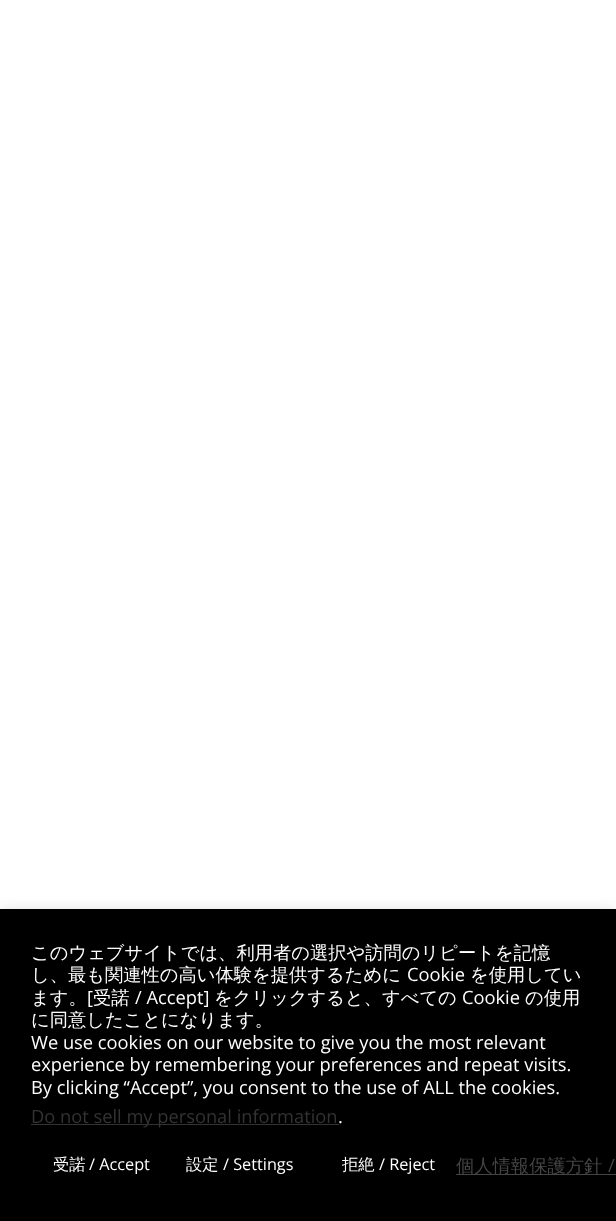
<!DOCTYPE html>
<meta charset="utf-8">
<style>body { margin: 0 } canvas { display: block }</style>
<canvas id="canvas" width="616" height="1221"></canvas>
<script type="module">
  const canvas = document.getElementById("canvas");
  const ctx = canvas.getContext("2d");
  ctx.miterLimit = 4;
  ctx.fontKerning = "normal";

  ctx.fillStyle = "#ffffff";
  ctx.fillRect(0, 0, 616, 1221);
  ctx.fillStyle = "rgba(172, 171, 171, 0.3)";
  ctx.filter = "blur(6px)";
  ctx.beginPath();
  ctx.rect(0, 908, 616, 312);
  ctx.fill();
  ctx.filter = "none";
  ctx.fillStyle = "#000000";
  ctx.fillRect(0, 909, 616, 312);
  ctx.font = "500 18.3px WenQuanYi Zen Hei";
  ctx.fillStyle = "#ffffff";
  ctx.fillText("このウェブサイトでは、利用者の選択や訪問のリピートを記憶", 31, 959);
  ctx.fillText("し、最も関連性の高い体験を提供するために", 31, 981);
  ctx.font = "18.3px Open Sans";
  ctx.fillText("Cookie", 407, 981);
  ctx.font = "500 18.3px WenQuanYi Zen Hei";
  ctx.fillText("を使用してい", 470, 981);
  ctx.fillText("ます。", 31, 1004);
  ctx.font = "18.3px Open Sans";
  ctx.fillText("[", 87, 1004);
  ctx.font = "500 18.3px WenQuanYi Zen Hei";
  ctx.fillText("受諾", 93, 1004);
  ctx.font = "18.3px Open Sans";
  ctx.fillText("/ Accept]", 135, 1004);
  ctx.font = "500 18.3px WenQuanYi Zen Hei";
  ctx.fillText("をクリックすると、すべての", 214, 1004);
  ctx.font = "18.3px Open Sans";
  ctx.fillText("Cookie", 462, 1004);
  ctx.font = "500 18.3px WenQuanYi Zen Hei";
  ctx.fillText("の使用", 525, 1004);
  ctx.fillText("に同意したことになります。", 31, 1026);
  ctx.font = "18.3px Open Sans";
  ctx.fillText("We use cookies on our website to give you the most relevant", 31, 1049);
  ctx.fillText("experience by remembering your preferences and repeat visits.", 31, 1071);
  ctx.fillText("By clicking “Accept”, you consent to the use of ALL the cookies.", 31, 1094);
  ctx.fillStyle = "#333333";
  ctx.fillRect(31, 1124, 308, 1);
  ctx.fillText("Do not sell my personal information", 31, 1123);
  ctx.fillStyle = "#ffffff";
  ctx.fillText(".", 338, 1123);
  ctx.font = "500 16.25px WenQuanYi Zen Hei";
  ctx.fillText("受諾", 53, 1170);
  ctx.font = "16.25px Open Sans";
  ctx.fillText("/ Accept", 89, 1170);
  ctx.font = "500 16.25px WenQuanYi Zen Hei";
  ctx.fillText("設定", 186, 1170);
  ctx.font = "16.25px Open Sans";
  ctx.fillText("/ Settings", 223, 1170);
  ctx.font = "500 16.25px WenQuanYi Zen Hei";
  ctx.fillText("拒絶", 342, 1170);
  ctx.font = "16.25px Open Sans";
  ctx.fillText("/ Reject", 379, 1170);
  ctx.fillStyle = "#444444";
  ctx.fillRect(456, 1174, 160, 1);
  ctx.font = "500 18.3px WenQuanYi Zen Hei";
  ctx.fillText("個人情報保護方針", 456, 1172);
  ctx.font = "18.3px Open Sans";
  ctx.fillText("/", 608, 1172);
</script>
